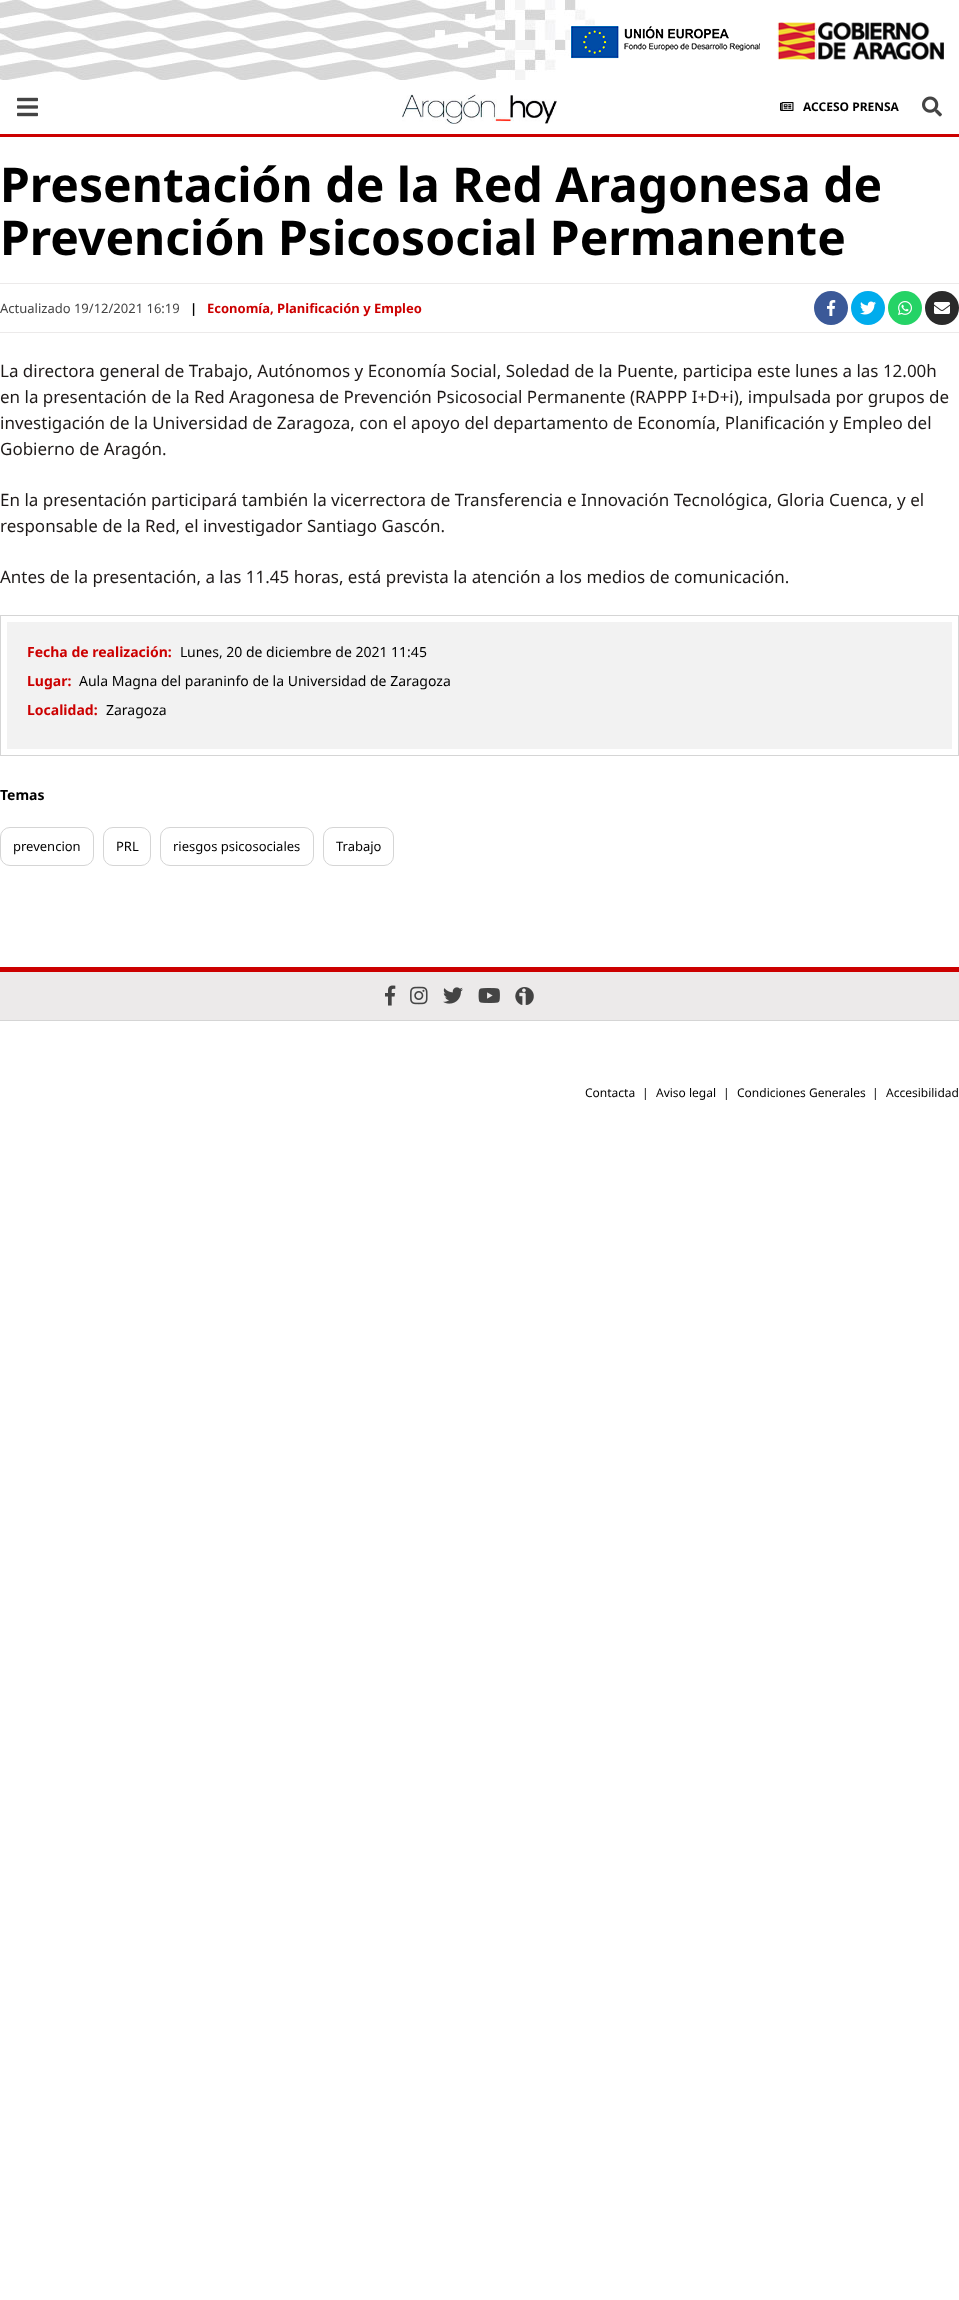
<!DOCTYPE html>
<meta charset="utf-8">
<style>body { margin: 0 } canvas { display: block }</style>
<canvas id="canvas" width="959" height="2300"></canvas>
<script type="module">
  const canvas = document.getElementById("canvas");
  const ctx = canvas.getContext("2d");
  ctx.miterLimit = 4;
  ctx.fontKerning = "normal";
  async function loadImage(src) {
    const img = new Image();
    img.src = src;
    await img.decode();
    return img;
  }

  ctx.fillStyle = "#ffffff";
  ctx.fillRect(0, 0, 959, 2300);
  ctx.drawImage(await loadImage("img1.png"), 0, 0, 595, 80);
  ctx.drawImage(await loadImage("img2.png"), 570, 25, 190, 34);
  ctx.drawImage(await loadImage("img3.png"), 777, 22, 167, 38);
  ctx.fillStyle = "#cc0000";
  ctx.fillRect(0, 134, 959, 3);
  ctx.drawImage(await loadImage("img4.png"), 17, 97, 21, 20);
  ctx.drawImage(await loadImage("img5.png"), 402, 94, 155, 30);
  ctx.drawImage(await loadImage("img6.png"), 780, 102, 14, 9);
  ctx.font = "bold 12px Noto Sans";
  ctx.fillStyle = "#000000";
  ctx.fillText("ACCESO PRENSA", 803, 111);
  ctx.drawImage(await loadImage("img7.png"), 922, 96, 20, 21);
  ctx.font = "bold 48px Noto Sans";
  ctx.fillText("Presentación de la Red Aragonesa de", 0, 202);
  ctx.fillText("Prevención Psicosocial Permanente", 0, 255);
  ctx.fillStyle = "#eceaea";
  ctx.fillRect(0, 283, 959, 1);
  ctx.fillRect(0, 332, 959, 1);
  ctx.font = "13px Noto Sans";
  ctx.fillStyle = "#444444";
  ctx.fillText("Actualizado 19/12/2021 16:19", 0, 313);
  ctx.font = "bold 13px Noto Sans";
  ctx.fillStyle = "#000000";
  ctx.fillText("|", 190, 313);
  ctx.fillStyle = "#cc0000";
  ctx.fillText("Economía, Planificación y Empleo", 207, 313);
  ctx.fillStyle = "#3b5998";
  ctx.beginPath();
  ctx.arc(831, 308, 17, 0, Math.PI * 2);
  ctx.fill();
  ctx.drawImage(await loadImage("img8.png"), 827, 300, 9, 16);
  ctx.fillStyle = "#00aced";
  ctx.beginPath();
  ctx.arc(868, 308, 17, 0, Math.PI * 2);
  ctx.fill();
  ctx.drawImage(await loadImage("img9.png"), 860, 301, 16, 14);
  ctx.fillStyle = "#25d366";
  ctx.beginPath();
  ctx.arc(905, 308, 17, 0, Math.PI * 2);
  ctx.fill();
  ctx.drawImage(await loadImage("img10.png"), 898, 301, 14, 14);
  ctx.fillStyle = "#2a2a2a";
  ctx.beginPath();
  ctx.arc(942, 308, 17, 0, Math.PI * 2);
  ctx.fill();
  ctx.drawImage(await loadImage("img11.png"), 934, 302, 16, 12);
  ctx.font = "17px Noto Sans";
  ctx.fillStyle = "#1e1a19";
  ctx.fillText("La directora general de Trabajo, Autónomos y Economía Social, Soledad de la Puente, participa este lunes a las 12.00h", 0, 377);
  ctx.fillText("en la presentación de la Red Aragonesa de Prevención Psicosocial Permanente (RAPPP I+D+i), impulsada por grupos de", 0, 403);
  ctx.fillText("investigación de la Universidad de Zaragoza, con el apoyo del departamento de Economía, Planificación y Empleo del", 0, 429);
  ctx.fillText("Gobierno de Aragón.", 0, 455);
  ctx.fillText("En la presentación participará también la vicerrectora de Transferencia e Innovación Tecnológica, Gloria Cuenca, y el", 0, 506);
  ctx.fillText("responsable de la Red, el investigador Santiago Gascón.", 0, 532);
  ctx.fillText("Antes de la presentación, a las 11.45 horas, está prevista la atención a los medios de comunicación.", 0, 583);
  ctx.strokeStyle = "#d5d5d5";
  ctx.strokeRect(0.5, 615.5, 958, 140);
  ctx.fillStyle = "#f2f2f2";
  ctx.fillRect(7, 622, 945, 127);
  ctx.font = "bold 14px Noto Sans";
  ctx.fillStyle = "#cc0000";
  ctx.fillText("Fecha de realización:", 27, 657);
  ctx.font = "14px 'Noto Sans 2'";
  ctx.fillStyle = "#000000";
  ctx.fillText("L", 180, 657);
  ctx.font = "14px Noto Sans";
  ctx.fillText("unes, 20 de diciembre de 2021 11:45", 187, 657);
  ctx.font = "bold 14px Noto Sans";
  ctx.fillStyle = "#cc0000";
  ctx.fillText("Lugar:", 27, 686);
  ctx.font = "14px Noto Sans";
  ctx.fillStyle = "#000000";
  ctx.fillText("Aula Magna del paraninfo de la Universidad de Zaragoza", 79, 686);
  ctx.font = "bold 14px Noto Sans";
  ctx.fillStyle = "#cc0000";
  ctx.fillText("Localidad:", 27, 715);
  ctx.font = "14px Noto Sans";
  ctx.fillStyle = "#000000";
  ctx.fillText("Zaragoza", 106, 715);
  ctx.font = "bold 14px Noto Sans";
  ctx.fillText("Temas", 0, 800);
  ctx.beginPath();
  ctx.roundRect(0.5, 827.5, 93, 38, 9.5);
  ctx.stroke();
  ctx.font = "13px Noto Sans";
  ctx.fillText("prevencion", 13, 851);
  ctx.beginPath();
  ctx.roundRect(103.5, 827.5, 47, 38, 9.5);
  ctx.stroke();
  ctx.fillText("PRL", 116, 851);
  ctx.beginPath();
  ctx.roundRect(160.5, 827.5, 153, 38, 9.5);
  ctx.stroke();
  ctx.fillText("riesgos psicosociales", 173, 851);
  ctx.beginPath();
  ctx.roundRect(323.5, 827.5, 70, 38, 9.5);
  ctx.stroke();
  ctx.fillText("Trabajo", 336, 851);
  ctx.fillStyle = "#eceaea";
  ctx.fillRect(0, 972, 959, 48);
  ctx.fillStyle = "#cc0000";
  ctx.fillRect(0, 967, 959, 5);
  ctx.drawImage(await loadImage("img12.png"), 385, 985, 11, 21);
  ctx.drawImage(await loadImage("img13.png"), 410, 986, 18, 19);
  ctx.drawImage(await loadImage("img14.png"), 443, 987, 20, 17);
  ctx.drawImage(await loadImage("img15.png"), 478, 988, 22, 15);
  ctx.drawImage(await loadImage("img16.png"), 515, 987, 19, 18);
  ctx.fillStyle = "#d5d5d5";
  ctx.fillRect(0, 1020, 959, 1);
  ctx.font = "12px Noto Sans";
  ctx.fillStyle = "#000000";
  ctx.fillText("Contacta", 585, 1097);
  ctx.fillText("|", 642, 1097);
  ctx.fillText("Aviso legal", 656, 1097);
  ctx.fillText("|", 723, 1097);
  ctx.fillText("Condiciones Generales", 737, 1097);
  ctx.fillText("|", 872, 1097);
  ctx.fillText("Accesibilidad", 886, 1097);
</script>
